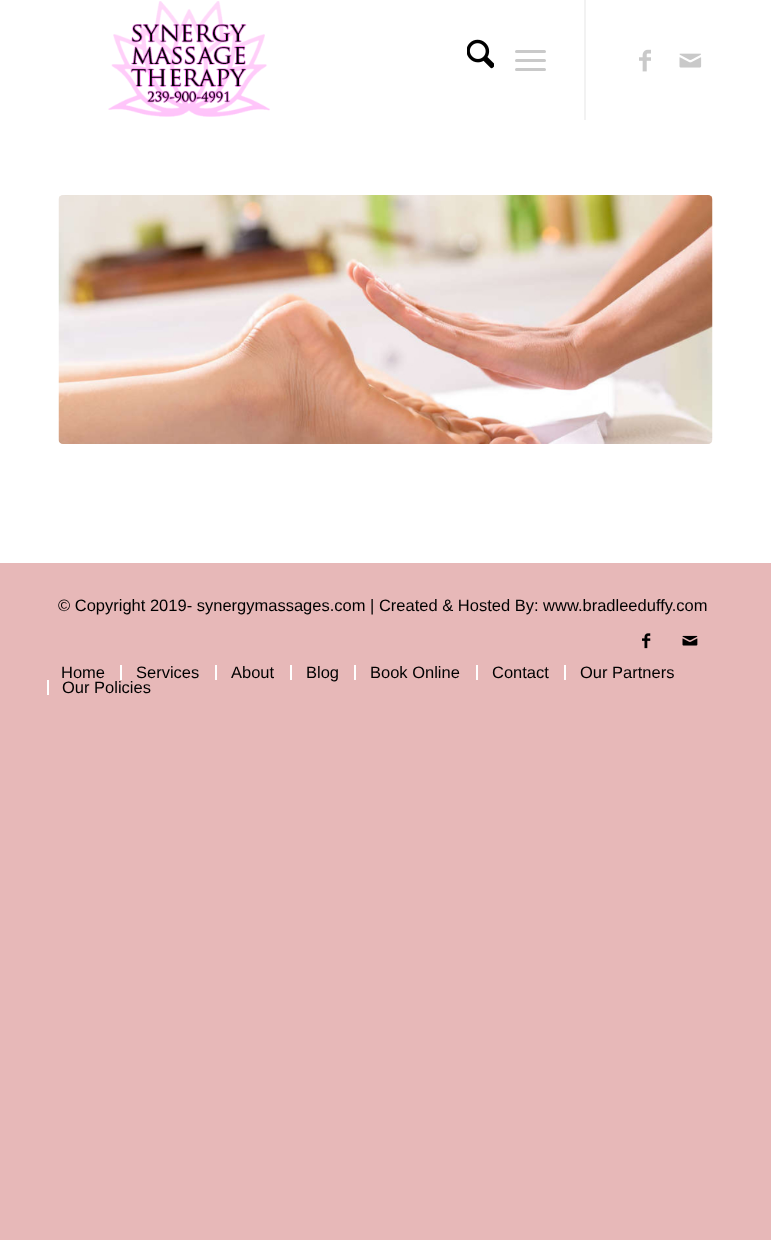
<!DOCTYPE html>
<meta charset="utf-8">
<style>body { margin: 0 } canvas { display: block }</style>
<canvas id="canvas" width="771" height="1240"></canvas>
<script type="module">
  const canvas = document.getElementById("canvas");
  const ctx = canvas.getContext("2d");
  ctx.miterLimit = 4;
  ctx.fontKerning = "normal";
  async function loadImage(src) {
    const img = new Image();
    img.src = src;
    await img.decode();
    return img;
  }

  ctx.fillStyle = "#e7b8b8";
  ctx.fillRect(0, 0, 771, 1240);
  ctx.fillStyle = "#ffffff";
  ctx.fillRect(0, 0, 771, 563);
  ctx.drawImage(await loadImage("img1.png"), 108, 1, 162, 116);
  ctx.fillStyle = "#f2f2f2";
  ctx.fillRect(584, 0, 2, 120);
  ctx.drawImage(await loadImage("img2.png"), 467, 39, 27, 30);
  ctx.fillStyle = "#c9c9c9";
  ctx.beginPath();
  ctx.roundRect(515, 59, 31, 3, 1.5);
  ctx.fill();
  ctx.beginPath();
  ctx.roundRect(515, 50, 31, 3, 1.5);
  ctx.fill();
  ctx.beginPath();
  ctx.roundRect(515, 68, 31, 3, 1.5);
  ctx.fill();
  ctx.drawImage(await loadImage("img3.png"), 639, 49, 12, 23);
  ctx.drawImage(await loadImage("img4.png"), 679, 53, 23, 15);
  ctx.drawImage(await loadImage("img5.png"), 58, 195, 655, 249);
  ctx.font = "16.5px Liberation Sans";
  ctx.fillStyle = "#000000";
  ctx.fillText("© Copyright 2019- synergymassages.com | Created & Hosted By: www.bradleeduffy.com", 58, 611);
  ctx.drawImage(await loadImage("img6.png"), 642, 633, 9, 16);
  ctx.drawImage(await loadImage("img7.png"), 682, 635, 16, 11);
  ctx.fillText("Home", 61, 678);
  ctx.fillStyle = "#ffffff";
  ctx.fillRect(120, 665, 2, 15);
  ctx.fillStyle = "#000000";
  ctx.fillText("Services", 136, 678);
  ctx.fillStyle = "#ffffff";
  ctx.fillRect(215, 665, 2, 15);
  ctx.fillStyle = "#000000";
  ctx.fillText("About", 231, 678);
  ctx.fillStyle = "#ffffff";
  ctx.fillRect(290, 665, 2, 15);
  ctx.fillStyle = "#000000";
  ctx.fillText("Blog", 306, 678);
  ctx.fillStyle = "#ffffff";
  ctx.fillRect(354, 665, 2, 15);
  ctx.fillStyle = "#000000";
  ctx.fillText("Book Online", 370, 678);
  ctx.fillStyle = "#ffffff";
  ctx.fillRect(476, 665, 2, 15);
  ctx.fillStyle = "#000000";
  ctx.fillText("Contact", 492, 678);
  ctx.fillStyle = "#ffffff";
  ctx.fillRect(564, 665, 2, 15);
  ctx.fillStyle = "#000000";
  ctx.fillText("Our Partners", 580, 678);
  ctx.fillStyle = "#ffffff";
  ctx.fillRect(47, 680, 2, 15);
  ctx.fillStyle = "#000000";
  ctx.fillText("Our Policies", 62, 693);
</script>
